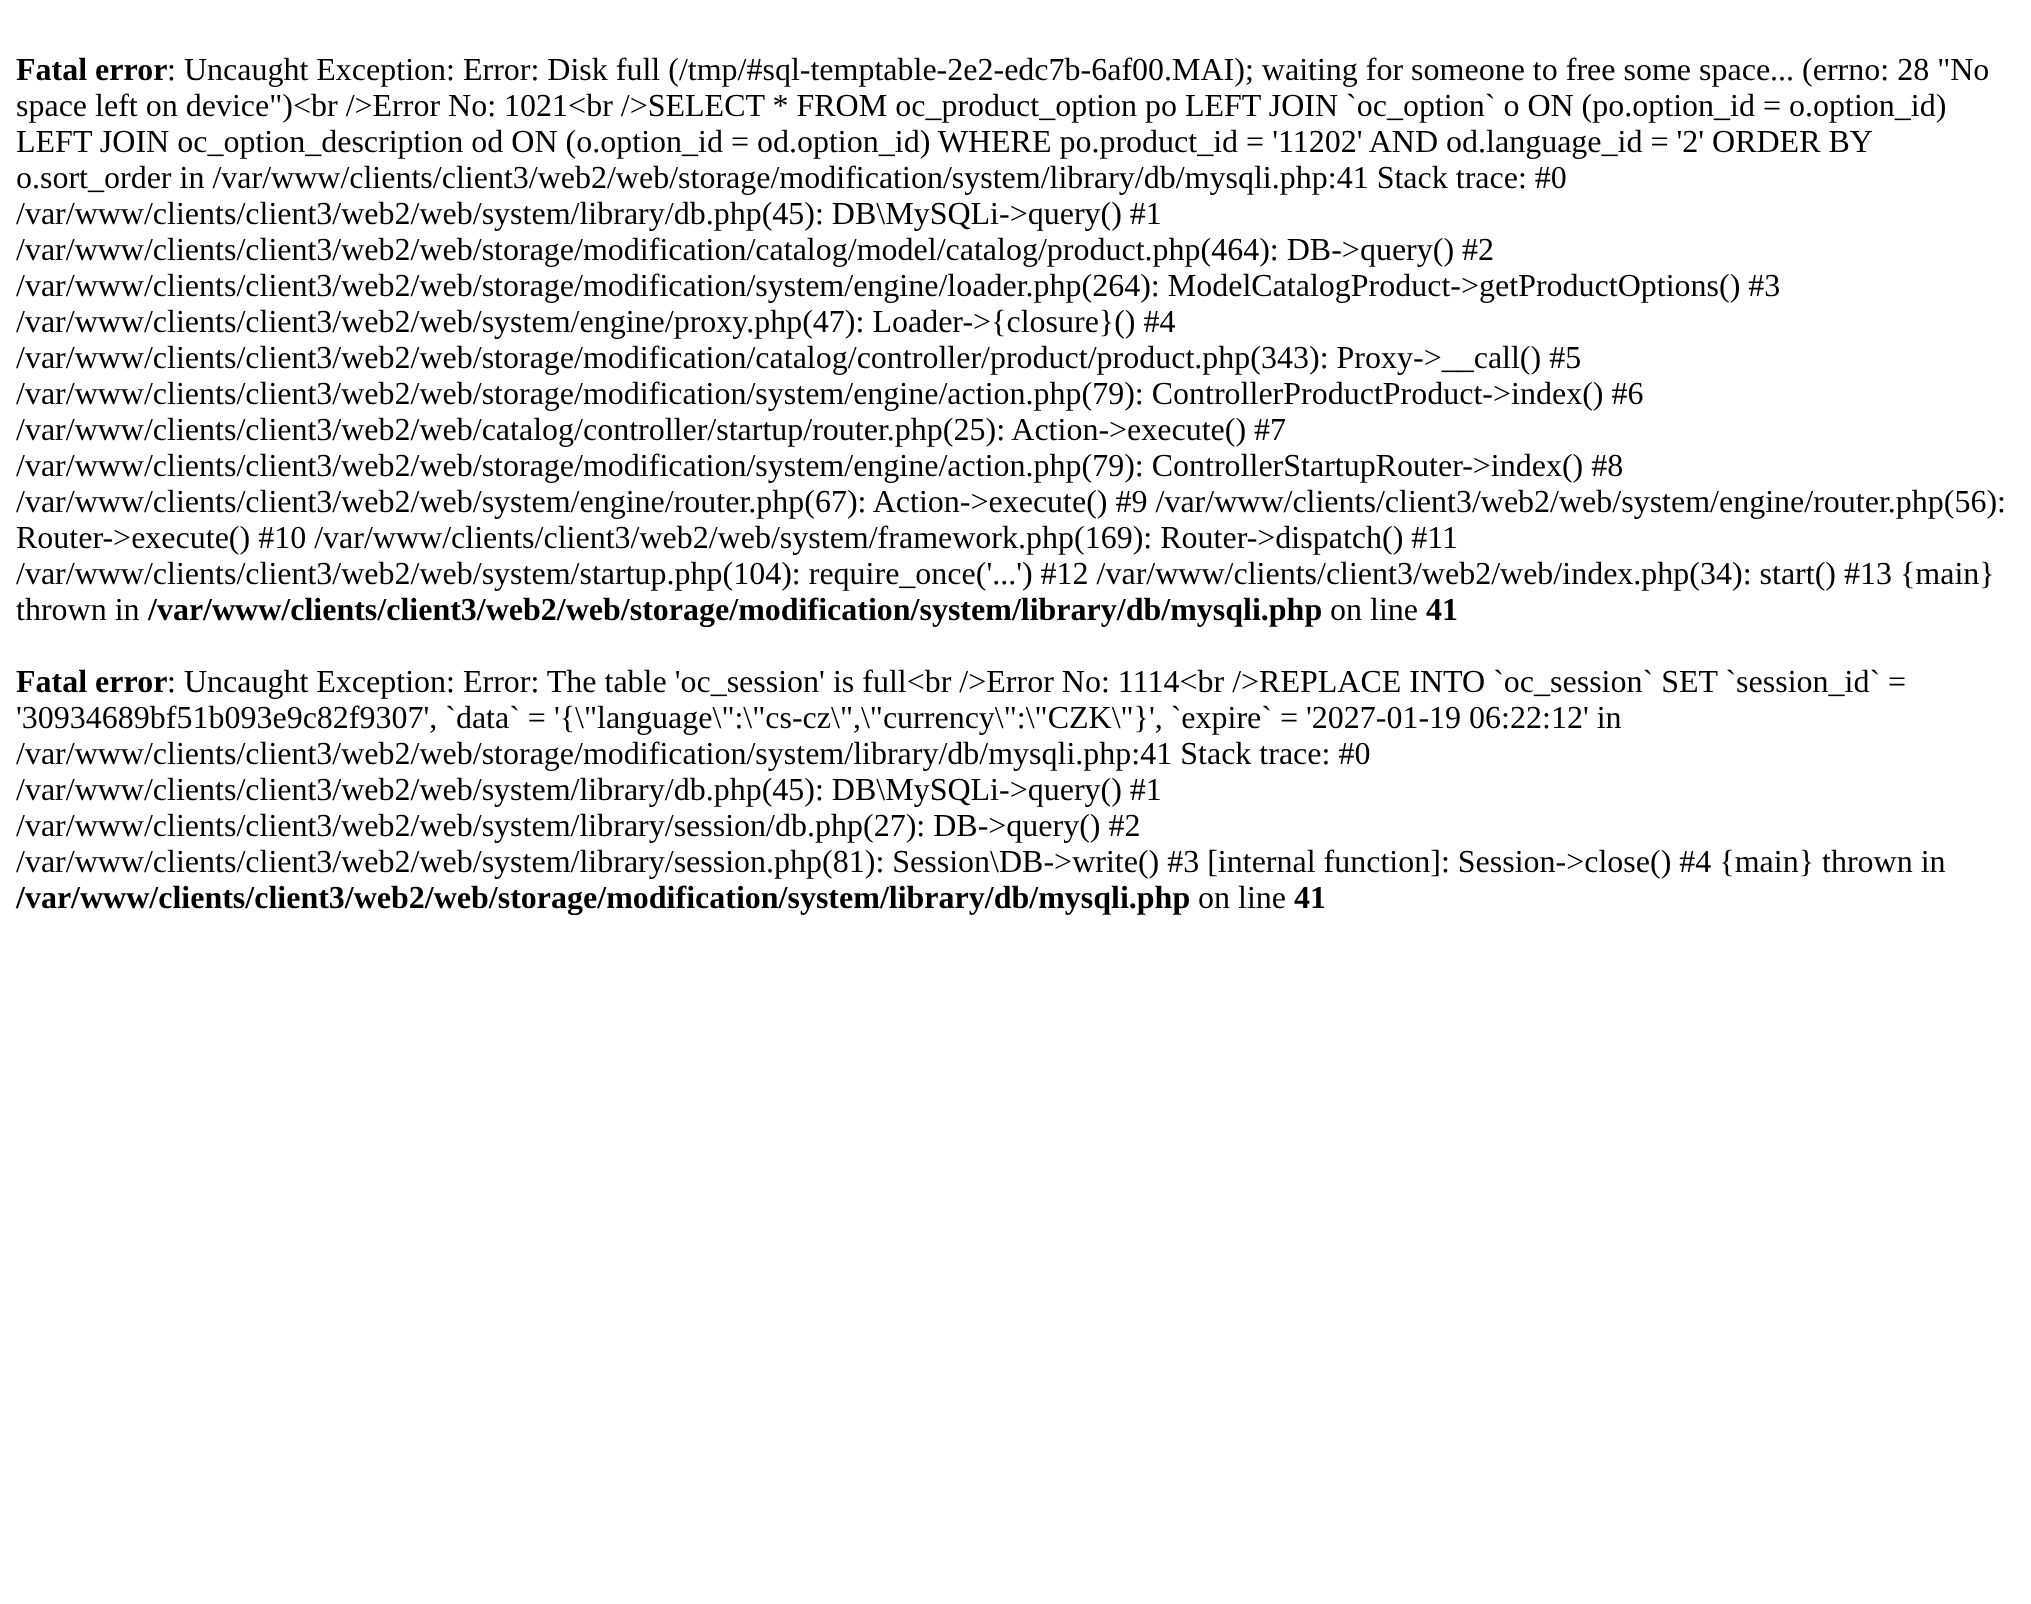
<!DOCTYPE html>
<meta charset="utf-8">
<style>body { margin: 0 } canvas { display: block }</style>
<canvas id="canvas" width="2031" height="1604"></canvas>
<script type="module">
  const canvas = document.getElementById("canvas");
  const ctx = canvas.getContext("2d");
  ctx.miterLimit = 4;
  ctx.fontKerning = "normal";

  ctx.fillStyle = "#ffffff";
  ctx.fillRect(0, 0, 2031, 1604);
  ctx.font = "bold 32px Liberation Serif";
  ctx.fillStyle = "#000000";
  ctx.fillText("Fatal error", 16, 80);
  ctx.font = "32px Liberation Serif";
  ctx.fillText(": Uncaught Exception: Error: Disk full (/tmp/#sql-temptable-2e2-edc7b-6af00.MAI); waiting for someone to free some space... (errno: 28 \"No", 167, 80);
  ctx.fillText("space left on device\")<br />Error No: 1021<br />SELECT * FROM oc_product_option po LEFT JOIN `oc_option` o ON (po.option_id = o.option_id)", 16, 116);
  ctx.fillText("LEFT JOIN oc_option_description od ON (o.option_id = od.option_id) WHERE po.product_id = '11202' AND od.language_id = '2' ORDER BY", 16, 152);
  ctx.fillText("o.sort_order in /var/www/clients/client3/web2/web/storage/modification/system/library/db/mysqli.php:41 Stack trace: #0", 16, 188);
  ctx.fillText("/var/www/clients/client3/web2/web/system/library/db.php(45): DB\\MySQLi->query() #1", 16, 224);
  ctx.fillText("/var/www/clients/client3/web2/web/storage/modification/catalog/model/catalog/product.php(464): DB->query() #2", 16, 260);
  ctx.fillText("/var/www/clients/client3/web2/web/storage/modification/system/engine/loader.php(264): ModelCatalogProduct->getProductOptions() #3", 16, 296);
  ctx.fillText("/var/www/clients/client3/web2/web/system/engine/proxy.php(47): Loader->{closure}() #4", 16, 332);
  ctx.fillText("/var/www/clients/client3/web2/web/storage/modification/catalog/controller/product/product.php(343): Proxy->__call() #5", 16, 368);
  ctx.fillText("/var/www/clients/client3/web2/web/storage/modification/system/engine/action.php(79): ControllerProductProduct->index() #6", 16, 404);
  ctx.fillText("/var/www/clients/client3/web2/web/catalog/controller/startup/router.php(25): Action->execute() #7", 16, 440);
  ctx.fillText("/var/www/clients/client3/web2/web/storage/modification/system/engine/action.php(79): ControllerStartupRouter->index() #8", 16, 476);
  ctx.fillText("/var/www/clients/client3/web2/web/system/engine/router.php(67): Action->execute() #9 /var/www/clients/client3/web2/web/system/engine/router.php(56):", 16, 512);
  ctx.fillText("Router->execute() #10 /var/www/clients/client3/web2/web/system/framework.php(169): Router->dispatch() #11", 16, 548);
  ctx.fillText("/var/www/clients/client3/web2/web/system/startup.php(104): require_once('...') #12 /var/www/clients/client3/web2/web/index.php(34): start() #13 {main}", 16, 584);
  ctx.fillText("thrown in", 16, 620);
  ctx.font = "bold 32px Liberation Serif";
  ctx.fillText("/var/www/clients/client3/web2/web/storage/modification/system/library/db/mysqli.php", 148, 620);
  ctx.font = "32px Liberation Serif";
  ctx.fillText("on line", 1330, 620);
  ctx.font = "bold 32px Liberation Serif";
  ctx.fillText("41", 1426, 620);
  ctx.fillText("Fatal error", 16, 692);
  ctx.font = "32px Liberation Serif";
  ctx.fillText(": Uncaught Exception: Error: The table 'oc_session' is full<br />Error No: 1114<br />REPLACE INTO `oc_session` SET `session_id` =", 167, 692);
  ctx.fillText("'30934689bf51b093e9c82f9307', `data` = '{\\\"language\\\":\\\"cs-cz\\\",\\\"currency\\\":\\\"CZK\\\"}', `expire` = '2027-01-19 06:22:12' in", 16, 728);
  ctx.fillText("/var/www/clients/client3/web2/web/storage/modification/system/library/db/mysqli.php:41 Stack trace: #0", 16, 764);
  ctx.fillText("/var/www/clients/client3/web2/web/system/library/db.php(45): DB\\MySQLi->query() #1", 16, 800);
  ctx.fillText("/var/www/clients/client3/web2/web/system/library/session/db.php(27): DB->query() #2", 16, 836);
  ctx.fillText("/var/www/clients/client3/web2/web/system/library/session.php(81): Session\\DB->write() #3 [internal function]: Session->close() #4 {main} thrown in", 16, 872);
  ctx.font = "bold 32px Liberation Serif";
  ctx.fillText("/var/www/clients/client3/web2/web/storage/modification/system/library/db/mysqli.php", 16, 908);
  ctx.font = "32px Liberation Serif";
  ctx.fillText("on line", 1198, 908);
  ctx.font = "bold 32px Liberation Serif";
  ctx.fillText("41", 1294, 908);
</script>
